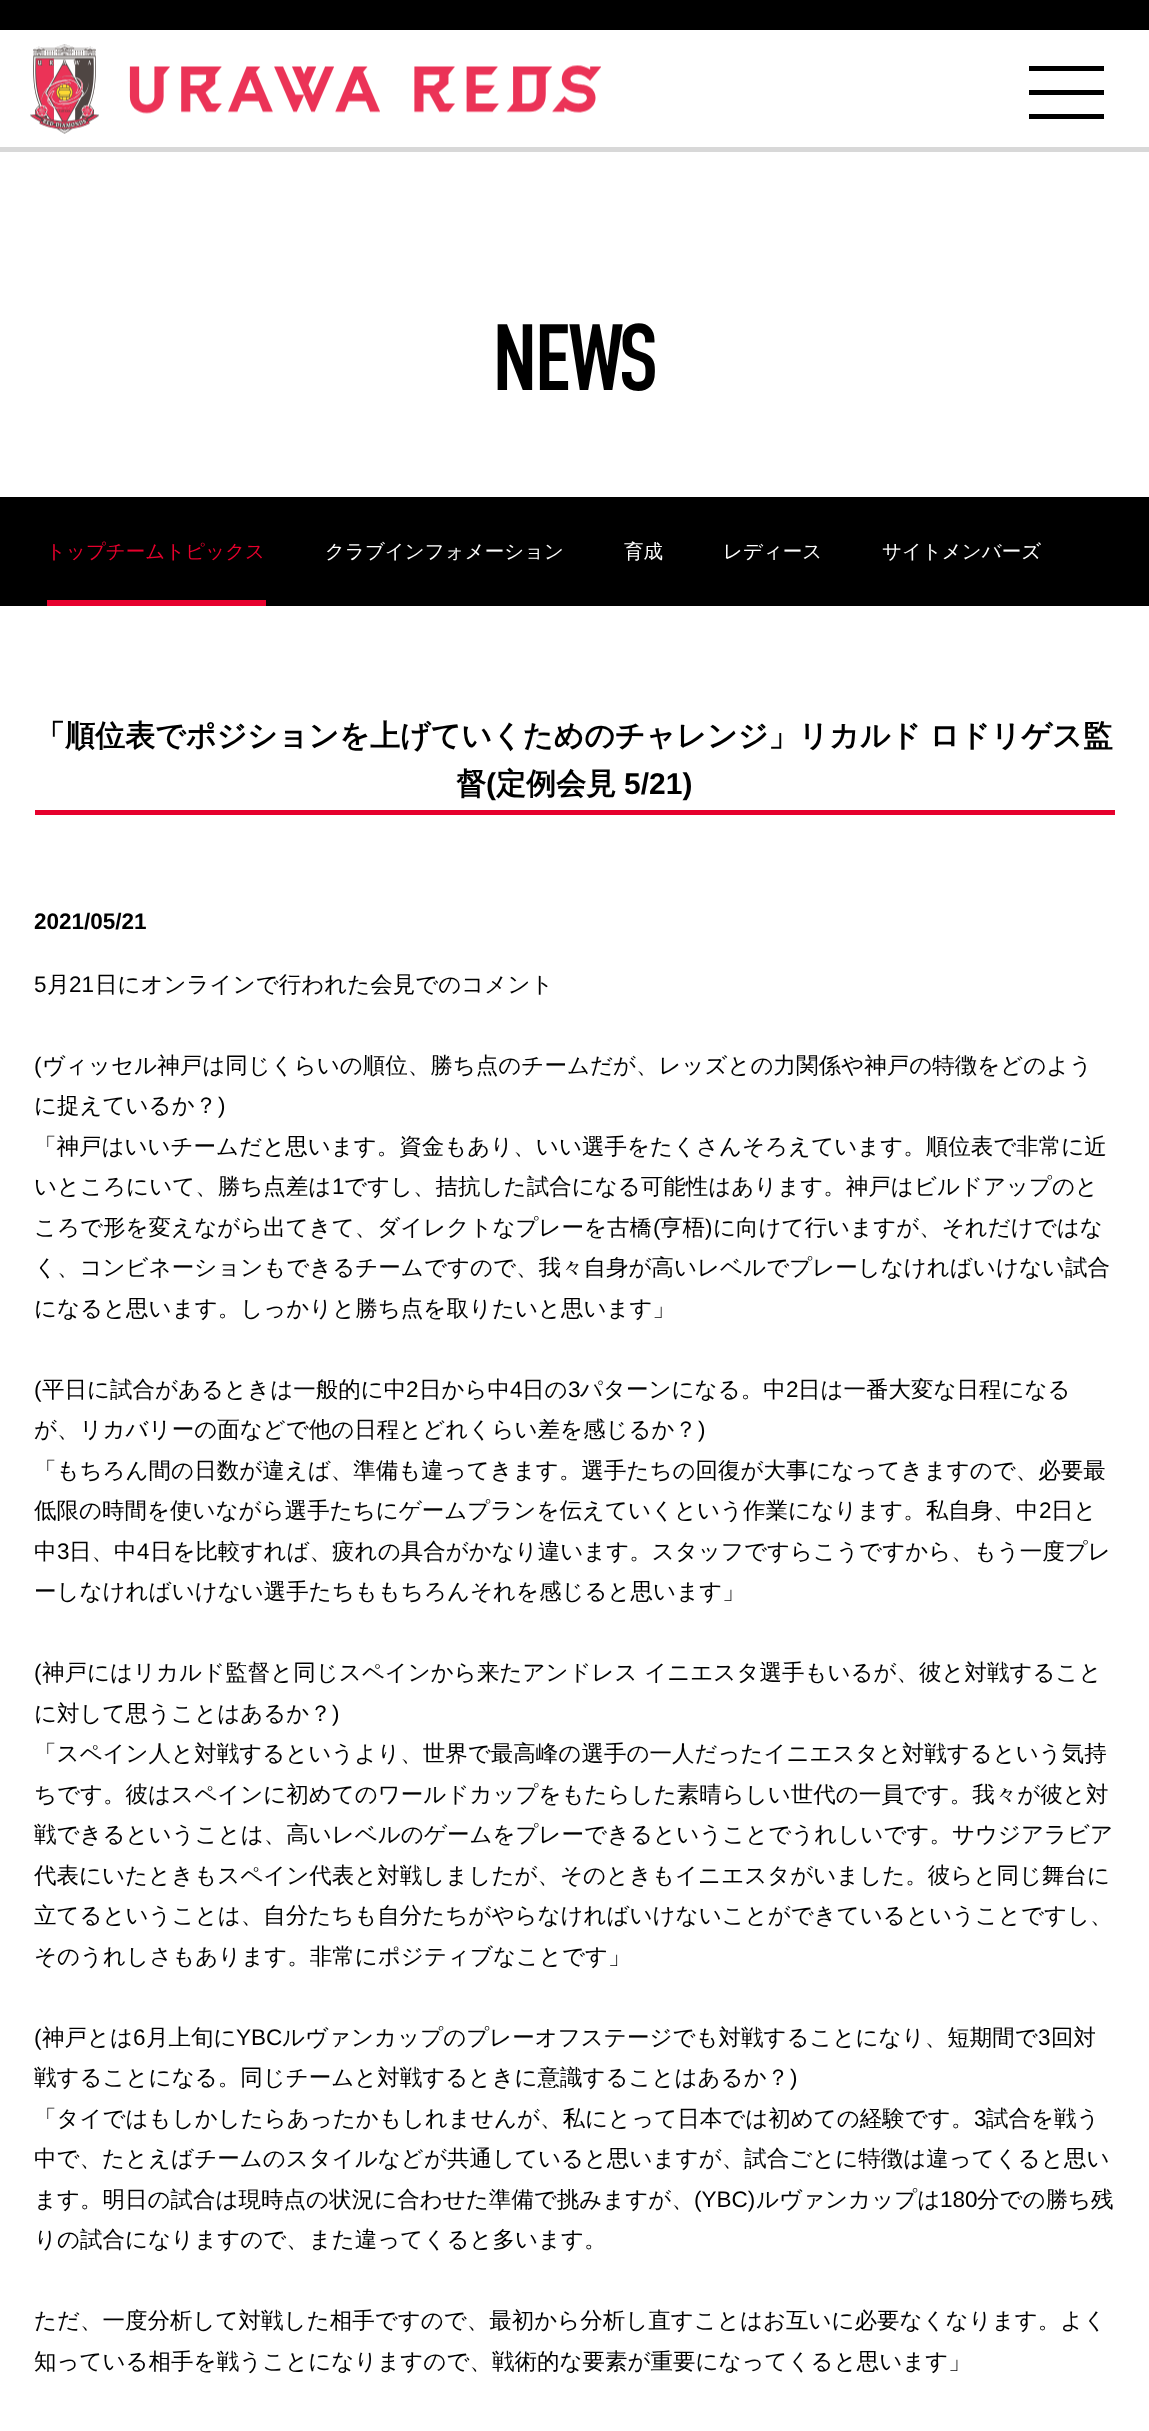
<!DOCTYPE html>
<meta charset="utf-8">
<style>body { margin: 0 } canvas { display: block }</style>
<canvas id="canvas" width="1149" height="2431"></canvas>
<script type="module">
  const canvas = document.getElementById("canvas");
  const ctx = canvas.getContext("2d");
  ctx.miterLimit = 4;
  ctx.fontKerning = "normal";
  async function loadImage(src) {
    const img = new Image();
    img.src = src;
    await img.decode();
    return img;
  }

  ctx.fillStyle = "#ffffff";
  ctx.fillRect(0, 0, 1149, 2431);
  ctx.fillStyle = "#000000";
  ctx.fillRect(0, 0, 1149, 30);
  ctx.drawImage(await loadImage("img1.png"), 30, 44, 571, 90);
  ctx.fillRect(1029, 66, 75, 5);
  ctx.fillRect(1029, 90, 75, 5);
  ctx.fillRect(1029, 114, 75, 5);
  ctx.fillStyle = "#d8d8d8";
  ctx.fillRect(0, 147, 1149, 5);
  ctx.letterSpacing = "-3.5px";
  ctx.font = "94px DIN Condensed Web";
  ctx.fillStyle = "#000000";
  ctx.fillText("NEWS", 492, 390);
  ctx.fillRect(0, 497, 1149, 109);
  ctx.letterSpacing = "0px";
  ctx.font = "500 19.5px WenQuanYi Zen Hei";
  ctx.fillStyle = "#e6002d";
  ctx.fillText("トップチームトピックス", 46, 558);
  ctx.fillRect(47, 600, 219, 6);
  ctx.fillStyle = "#ffffff";
  ctx.fillText("クラブインフォメーション", 325, 558);
  ctx.fillText("育成", 624, 558);
  ctx.fillText("レディース", 723, 558);
  ctx.fillText("サイトメンバーズ", 882, 558);
  ctx.wordSpacing = "-1px";
  ctx.font = "bold 30px WenQuanYi Zen Hei";
  ctx.fillStyle = "#000000";
  ctx.fillText("「順位表でポジションを上げていくためのチャレンジ」リカルド ロドリゲス監", 35, 746);
  ctx.wordSpacing = "0px";
  ctx.fillText("督", 456, 794);
  ctx.font = "bold 30px Liberation Sans";
  ctx.fillText("(", 486, 794);
  ctx.font = "bold 30px WenQuanYi Zen Hei";
  ctx.fillText("定例会見", 496, 794);
  ctx.font = "bold 30px Liberation Sans";
  ctx.fillText("5/21)", 624, 794);
  ctx.fillStyle = "#e6002d";
  ctx.fillRect(35, 810, 1080, 5);
  ctx.font = "bold 22.5px Liberation Sans";
  ctx.fillStyle = "#000000";
  ctx.fillText("2021/05/21", 34, 929);
  ctx.font = "22.5px Liberation Sans";
  ctx.fillText("5", 34, 992);
  ctx.font = "500 22.5px WenQuanYi Zen Hei";
  ctx.fillText("月", 47, 992);
  ctx.font = "22.5px Liberation Sans";
  ctx.fillText("21", 69, 992);
  ctx.font = "500 22.5px WenQuanYi Zen Hei";
  ctx.fillText("日にオンラインで行われた会見でのコメント", 95, 992);
  ctx.font = "22.5px Liberation Sans";
  ctx.fillText("(", 34, 1073);
  ctx.font = "500 22.5px WenQuanYi Zen Hei";
  ctx.fillText("ヴィッセル神戸は同じくらいの順位、勝ち点のチームだが、レッズとの力関係や神戸の特徴をどのよう", 42, 1073);
  ctx.fillText("に捉えているか？", 34, 1113);
  ctx.font = "22.5px Liberation Sans";
  ctx.fillText(")", 218, 1113);
  ctx.font = "500 22.5px WenQuanYi Zen Hei";
  ctx.fillText("「神戸はいいチームだと思います。資金もあり、いい選手をたくさんそろえています。順位表で非常に近", 34, 1154);
  ctx.fillText("いところにいて、勝ち点差は", 34, 1194);
  ctx.font = "22.5px Liberation Sans";
  ctx.fillText("1", 332, 1194);
  ctx.font = "500 22.5px WenQuanYi Zen Hei";
  ctx.fillText("ですし、拮抗した試合になる可能性はあります。神戸はビルドアップのと", 344, 1194);
  ctx.fillText("ころで形を変えながら出てきて、ダイレクトなプレーを古橋", 34, 1235);
  ctx.font = "22.5px Liberation Sans";
  ctx.fillText("(", 653, 1235);
  ctx.font = "500 22.5px WenQuanYi Zen Hei";
  ctx.fillText("亨梧", 660, 1235);
  ctx.font = "22.5px Liberation Sans";
  ctx.fillText(")", 705, 1235);
  ctx.font = "500 22.5px WenQuanYi Zen Hei";
  ctx.fillText("に向けて行いますが、それだけではな", 713, 1235);
  ctx.fillText("く、コンビネーションもできるチームですので、我々自身が高いレベルでプレーしなければいけない試合", 34, 1275);
  ctx.fillText("になると思います。しっかりと勝ち点を取りたいと思います」", 34, 1316);
  ctx.font = "22.5px Liberation Sans";
  ctx.fillText("(", 34, 1397);
  ctx.font = "500 22.5px WenQuanYi Zen Hei";
  ctx.fillText("平日に試合があるときは一般的に中", 42, 1397);
  ctx.font = "22.5px Liberation Sans";
  ctx.fillText("2", 406, 1397);
  ctx.font = "500 22.5px WenQuanYi Zen Hei";
  ctx.fillText("日から中", 419, 1397);
  ctx.font = "22.5px Liberation Sans";
  ctx.fillText("4", 510, 1397);
  ctx.font = "500 22.5px WenQuanYi Zen Hei";
  ctx.fillText("日の", 522, 1397);
  ctx.font = "22.5px Liberation Sans";
  ctx.fillText("3", 568, 1397);
  ctx.font = "500 22.5px WenQuanYi Zen Hei";
  ctx.fillText("パターンになる。中", 580, 1397);
  ctx.font = "22.5px Liberation Sans";
  ctx.fillText("2", 786, 1397);
  ctx.font = "500 22.5px WenQuanYi Zen Hei";
  ctx.fillText("日は一番大変な日程になる", 798, 1397);
  ctx.fillText("が、リカバリーの面などで他の日程とどれくらい差を感じるか？", 34, 1437);
  ctx.font = "22.5px Liberation Sans";
  ctx.fillText(")", 698, 1437);
  ctx.font = "500 22.5px WenQuanYi Zen Hei";
  ctx.fillText("「もちろん間の日数が違えば、準備も違ってきます。選手たちの回復が大事になってきますので、必要最", 34, 1478);
  ctx.fillText("低限の時間を使いながら選手たちにゲームプランを伝えていくという作業になります。私自身、中", 34, 1518);
  ctx.font = "22.5px Liberation Sans";
  ctx.fillText("2", 1039, 1518);
  ctx.font = "500 22.5px WenQuanYi Zen Hei";
  ctx.fillText("日と", 1051, 1518);
  ctx.fillText("中", 34, 1559);
  ctx.font = "22.5px Liberation Sans";
  ctx.fillText("3", 57, 1559);
  ctx.font = "500 22.5px WenQuanYi Zen Hei";
  ctx.fillText("日、中", 69, 1559);
  ctx.font = "22.5px Liberation Sans";
  ctx.fillText("4", 137, 1559);
  ctx.font = "500 22.5px WenQuanYi Zen Hei";
  ctx.fillText("日を比較すれば、疲れの具合がかなり違います。スタッフですらこうですから、もう一度プレ", 150, 1559);
  ctx.fillText("ーしなければいけない選手たちももちろんそれを感じると思います」", 34, 1599);
  ctx.font = "22.5px Liberation Sans";
  ctx.fillText("(", 34, 1680);
  ctx.font = "500 22.5px WenQuanYi Zen Hei";
  ctx.fillText("神戸にはリカルド監督と同じスペインから来たアンドレス イニエスタ選手もいるが、彼と対戦すること", 42, 1680);
  ctx.fillText("に対して思うことはあるか？", 34, 1721);
  ctx.font = "22.5px Liberation Sans";
  ctx.fillText(")", 332, 1721);
  ctx.font = "500 22.5px WenQuanYi Zen Hei";
  ctx.fillText("「スペイン人と対戦するというより、世界で最高峰の選手の一人だったイニエスタと対戦するという気持", 34, 1761);
  ctx.fillText("ちです。彼はスペインに初めてのワールドカップをもたらした素晴らしい世代の一員です。我々が彼と対", 34, 1802);
  ctx.fillText("戦できるということは、高いレベルのゲームをプレーできるということでうれしいです。サウジアラビア", 34, 1842);
  ctx.fillText("代表にいたときもスペイン代表と対戦しましたが、そのときもイニエスタがいました。彼らと同じ舞台に", 34, 1883);
  ctx.fillText("立てるということは、自分たちも自分たちがやらなければいけないことができているということですし、", 34, 1923);
  ctx.fillText("そのうれしさもあります。非常にポジティブなことです」", 34, 1964);
  ctx.font = "22.5px Liberation Sans";
  ctx.fillText("(", 34, 2045);
  ctx.font = "500 22.5px WenQuanYi Zen Hei";
  ctx.fillText("神戸とは", 42, 2045);
  ctx.font = "22.5px Liberation Sans";
  ctx.fillText("6", 133, 2045);
  ctx.font = "500 22.5px WenQuanYi Zen Hei";
  ctx.fillText("月上旬に", 146, 2045);
  ctx.font = "22.5px Liberation Sans";
  ctx.fillText("YBC", 236, 2045);
  ctx.font = "500 22.5px WenQuanYi Zen Hei";
  ctx.fillText("ルヴァンカップのプレーオフステージでも対戦することになり、短期間で", 282, 2045);
  ctx.font = "22.5px Liberation Sans";
  ctx.fillText("3", 1038, 2045);
  ctx.font = "500 22.5px WenQuanYi Zen Hei";
  ctx.fillText("回対", 1051, 2045);
  ctx.fillText("戦することになる。同じチームと対戦するときに意識することはあるか？", 34, 2085);
  ctx.font = "22.5px Liberation Sans";
  ctx.fillText(")", 790, 2085);
  ctx.font = "500 22.5px WenQuanYi Zen Hei";
  ctx.fillText("「タイではもしかしたらあったかもしれませんが、私にとって日本では初めての経験です。", 34, 2126);
  ctx.font = "22.5px Liberation Sans";
  ctx.fillText("3", 974, 2126);
  ctx.font = "500 22.5px WenQuanYi Zen Hei";
  ctx.fillText("試合を戦う", 986, 2126);
  ctx.fillText("中で、たとえばチームのスタイルなどが共通していると思いますが、試合ごとに特徴は違ってくると思い", 34, 2166);
  ctx.fillText("ます。明日の試合は現時点の状況に合わせた準備で挑みますが、", 34, 2207);
  ctx.font = "22.5px Liberation Sans";
  ctx.fillText("(YBC)", 694, 2207);
  ctx.font = "500 22.5px WenQuanYi Zen Hei";
  ctx.fillText("ルヴァンカップは", 756, 2207);
  ctx.font = "22.5px Liberation Sans";
  ctx.fillText("180", 940, 2207);
  ctx.font = "500 22.5px WenQuanYi Zen Hei";
  ctx.fillText("分での勝ち残", 977, 2207);
  ctx.fillText("りの試合になりますので、また違ってくると多います。", 34, 2247);
  ctx.fillText("ただ、一度分析して対戦した相手ですので、最初から分析し直すことはお互いに必要なくなります。よく", 34, 2328);
  ctx.fillText("知っている相手を戦うことになりますので、戦術的な要素が重要になってくると思います」", 34, 2369);
</script>
